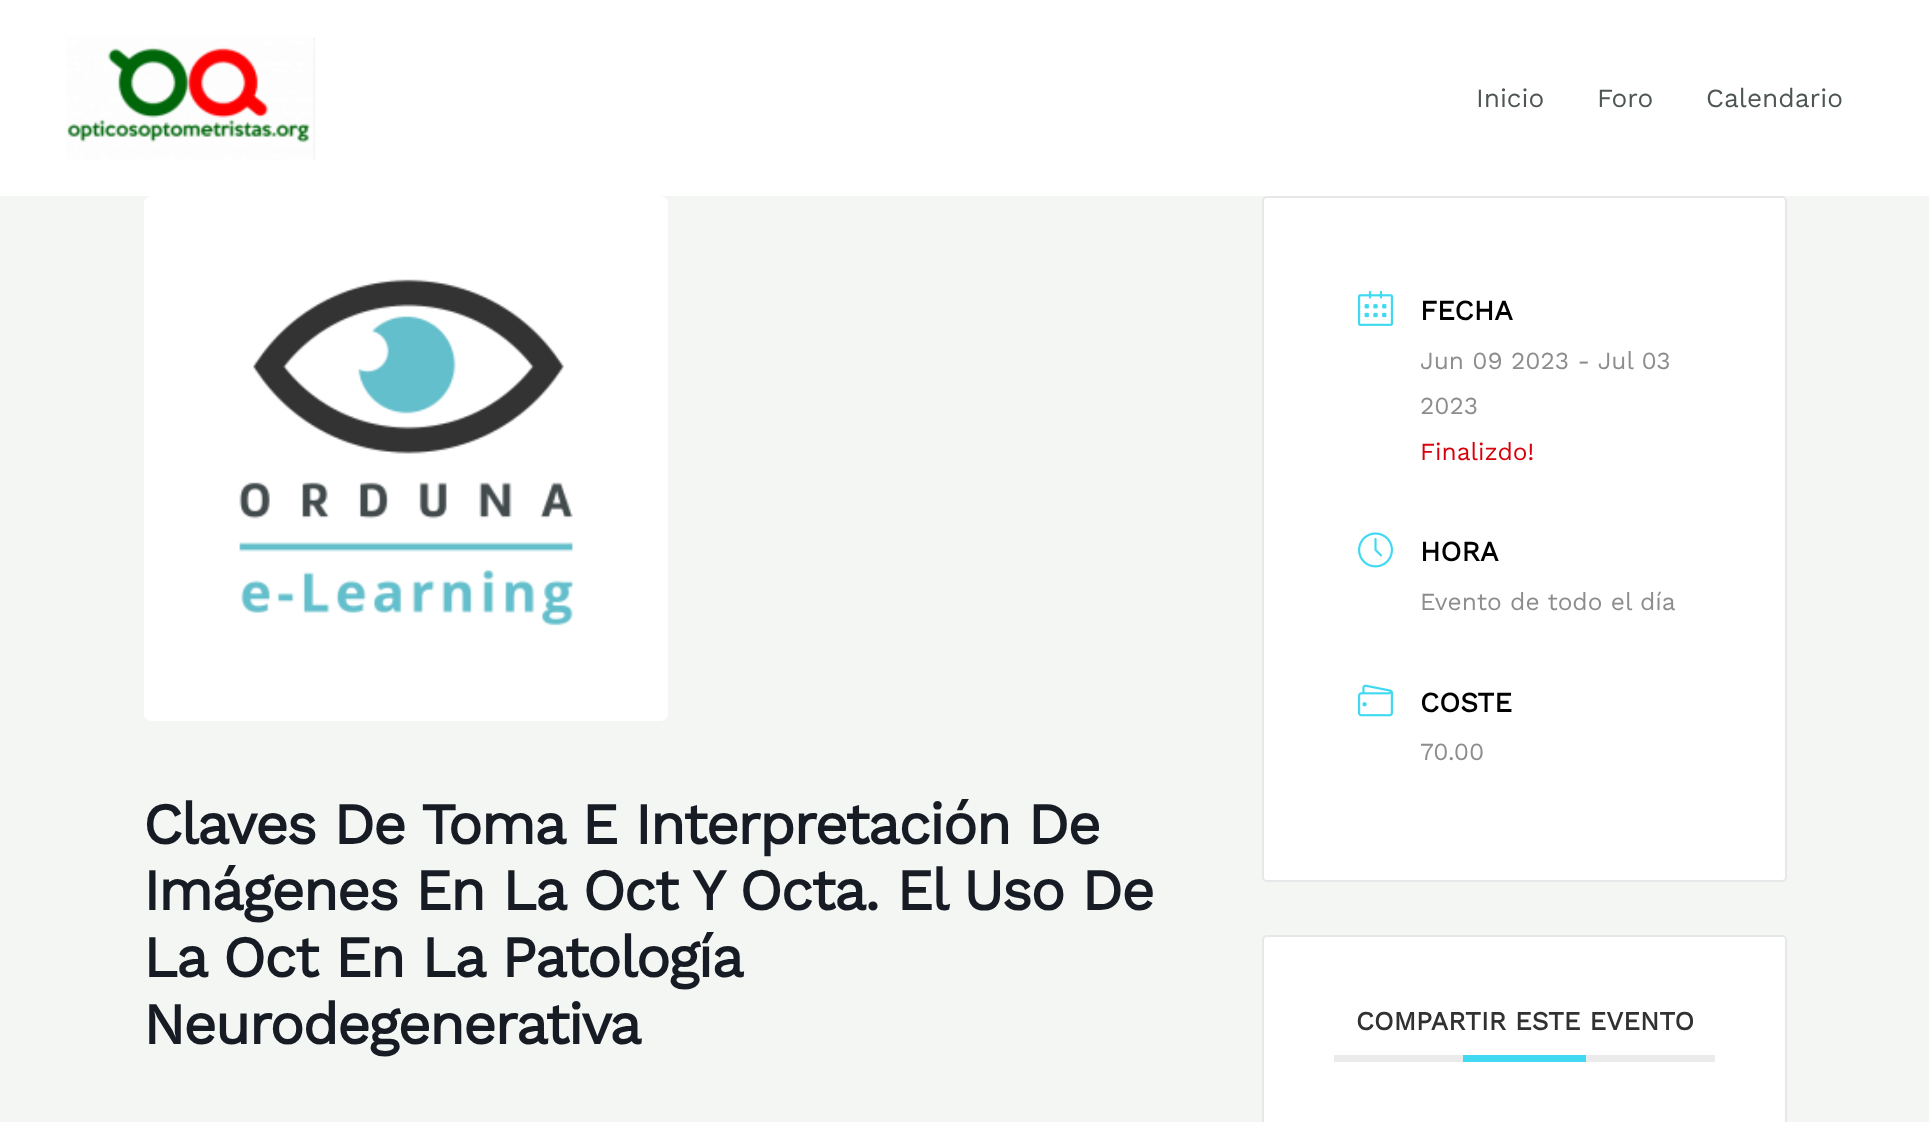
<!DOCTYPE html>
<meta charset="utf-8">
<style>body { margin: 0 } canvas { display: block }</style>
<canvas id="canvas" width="1929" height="1122"></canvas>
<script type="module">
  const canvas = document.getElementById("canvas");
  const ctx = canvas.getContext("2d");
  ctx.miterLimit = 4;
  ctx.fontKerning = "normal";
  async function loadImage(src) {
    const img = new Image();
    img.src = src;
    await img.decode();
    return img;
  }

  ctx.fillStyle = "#f4f6f4";
  ctx.fillRect(0, 0, 1929, 1122);
  ctx.fillStyle = "#ffffff";
  ctx.fillRect(0, 0, 1929, 196);
  ctx.drawImage(await loadImage("img1.png"), 66, 37, 249, 123);
  ctx.font = "26.25px Work Sans";
  ctx.fillStyle = "#4e5652";
  ctx.fillText("Inicio", 1476, 107);
  ctx.fillText("Foro", 1597, 107);
  ctx.fillText("Calendario", 1706, 107);
  ctx.drawImage(await loadImage("img2.png"), 144, 196, 524, 525);
  ctx.letterSpacing = "-1.75px";
  ctx.font = "bold 57.75px Work Sans";
  ctx.fillStyle = "#171c24";
  ctx.fillText("Claves De Toma E Interpretación De", 143, 844);
  ctx.fillText("Imágenes En La Oct Y Octa. El Uso De", 143, 910);
  ctx.wordSpacing = "-0.5px";
  ctx.fillText("La Oct En La Patología", 143, 977);
  ctx.wordSpacing = "0px";
  ctx.fillText("Neurodegenerativa", 143, 1044);
  ctx.fillStyle = "#ffffff";
  ctx.beginPath();
  ctx.roundRect(1263, 197, 523, 684, 4);
  ctx.fill();
  ctx.strokeStyle = "#e6e7e8";
  ctx.lineWidth = 2;
  ctx.stroke();
  ctx.drawImage(await loadImage("img3.png"), 1358, 291, 35, 35);
  ctx.letterSpacing = "0px";
  ctx.font = "bold 28px Work Sans";
  ctx.fillStyle = "#000000";
  ctx.fillText("FECHA", 1420, 320);
  ctx.font = "24.5px Work Sans";
  ctx.fillStyle = "#8d8d8d";
  ctx.fillText("Jun 09 2023 - Jul 03", 1420, 369);
  ctx.fillText("2023", 1420, 414);
  ctx.fillStyle = "#d8000c";
  ctx.fillText("Finalizdo!", 1420, 460);
  ctx.drawImage(await loadImage("img4.png"), 1358, 532, 35, 36);
  ctx.font = "bold 28px Work Sans";
  ctx.fillStyle = "#000000";
  ctx.fillText("HORA", 1420, 561);
  ctx.font = "24.5px Work Sans";
  ctx.fillStyle = "#8d8d8d";
  ctx.fillText("Evento de todo el día", 1420, 610);
  ctx.drawImage(await loadImage("img5.png"), 1358, 684, 35, 33);
  ctx.font = "bold 28px Work Sans";
  ctx.fillStyle = "#000000";
  ctx.fillText("COSTE", 1420, 712);
  ctx.font = "24.5px Work Sans";
  ctx.fillStyle = "#8d8d8d";
  ctx.fillText("70.00", 1420, 760);
  ctx.fillStyle = "#ffffff";
  ctx.beginPath();
  ctx.roundRect(1263, 936, 523, 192, 4);
  ctx.fill();
  ctx.stroke();
  ctx.fillStyle = "#ebebeb";
  ctx.fillRect(1334, 1055, 381, 7);
  ctx.font = "bold 26.25px Work Sans";
  ctx.fillStyle = "#313131";
  ctx.fillText("COMPARTIR ESTE EVENTO", 1356, 1030);
  ctx.fillStyle = "#40d9f1";
  ctx.fillRect(1463, 1055, 123, 7);
</script>
